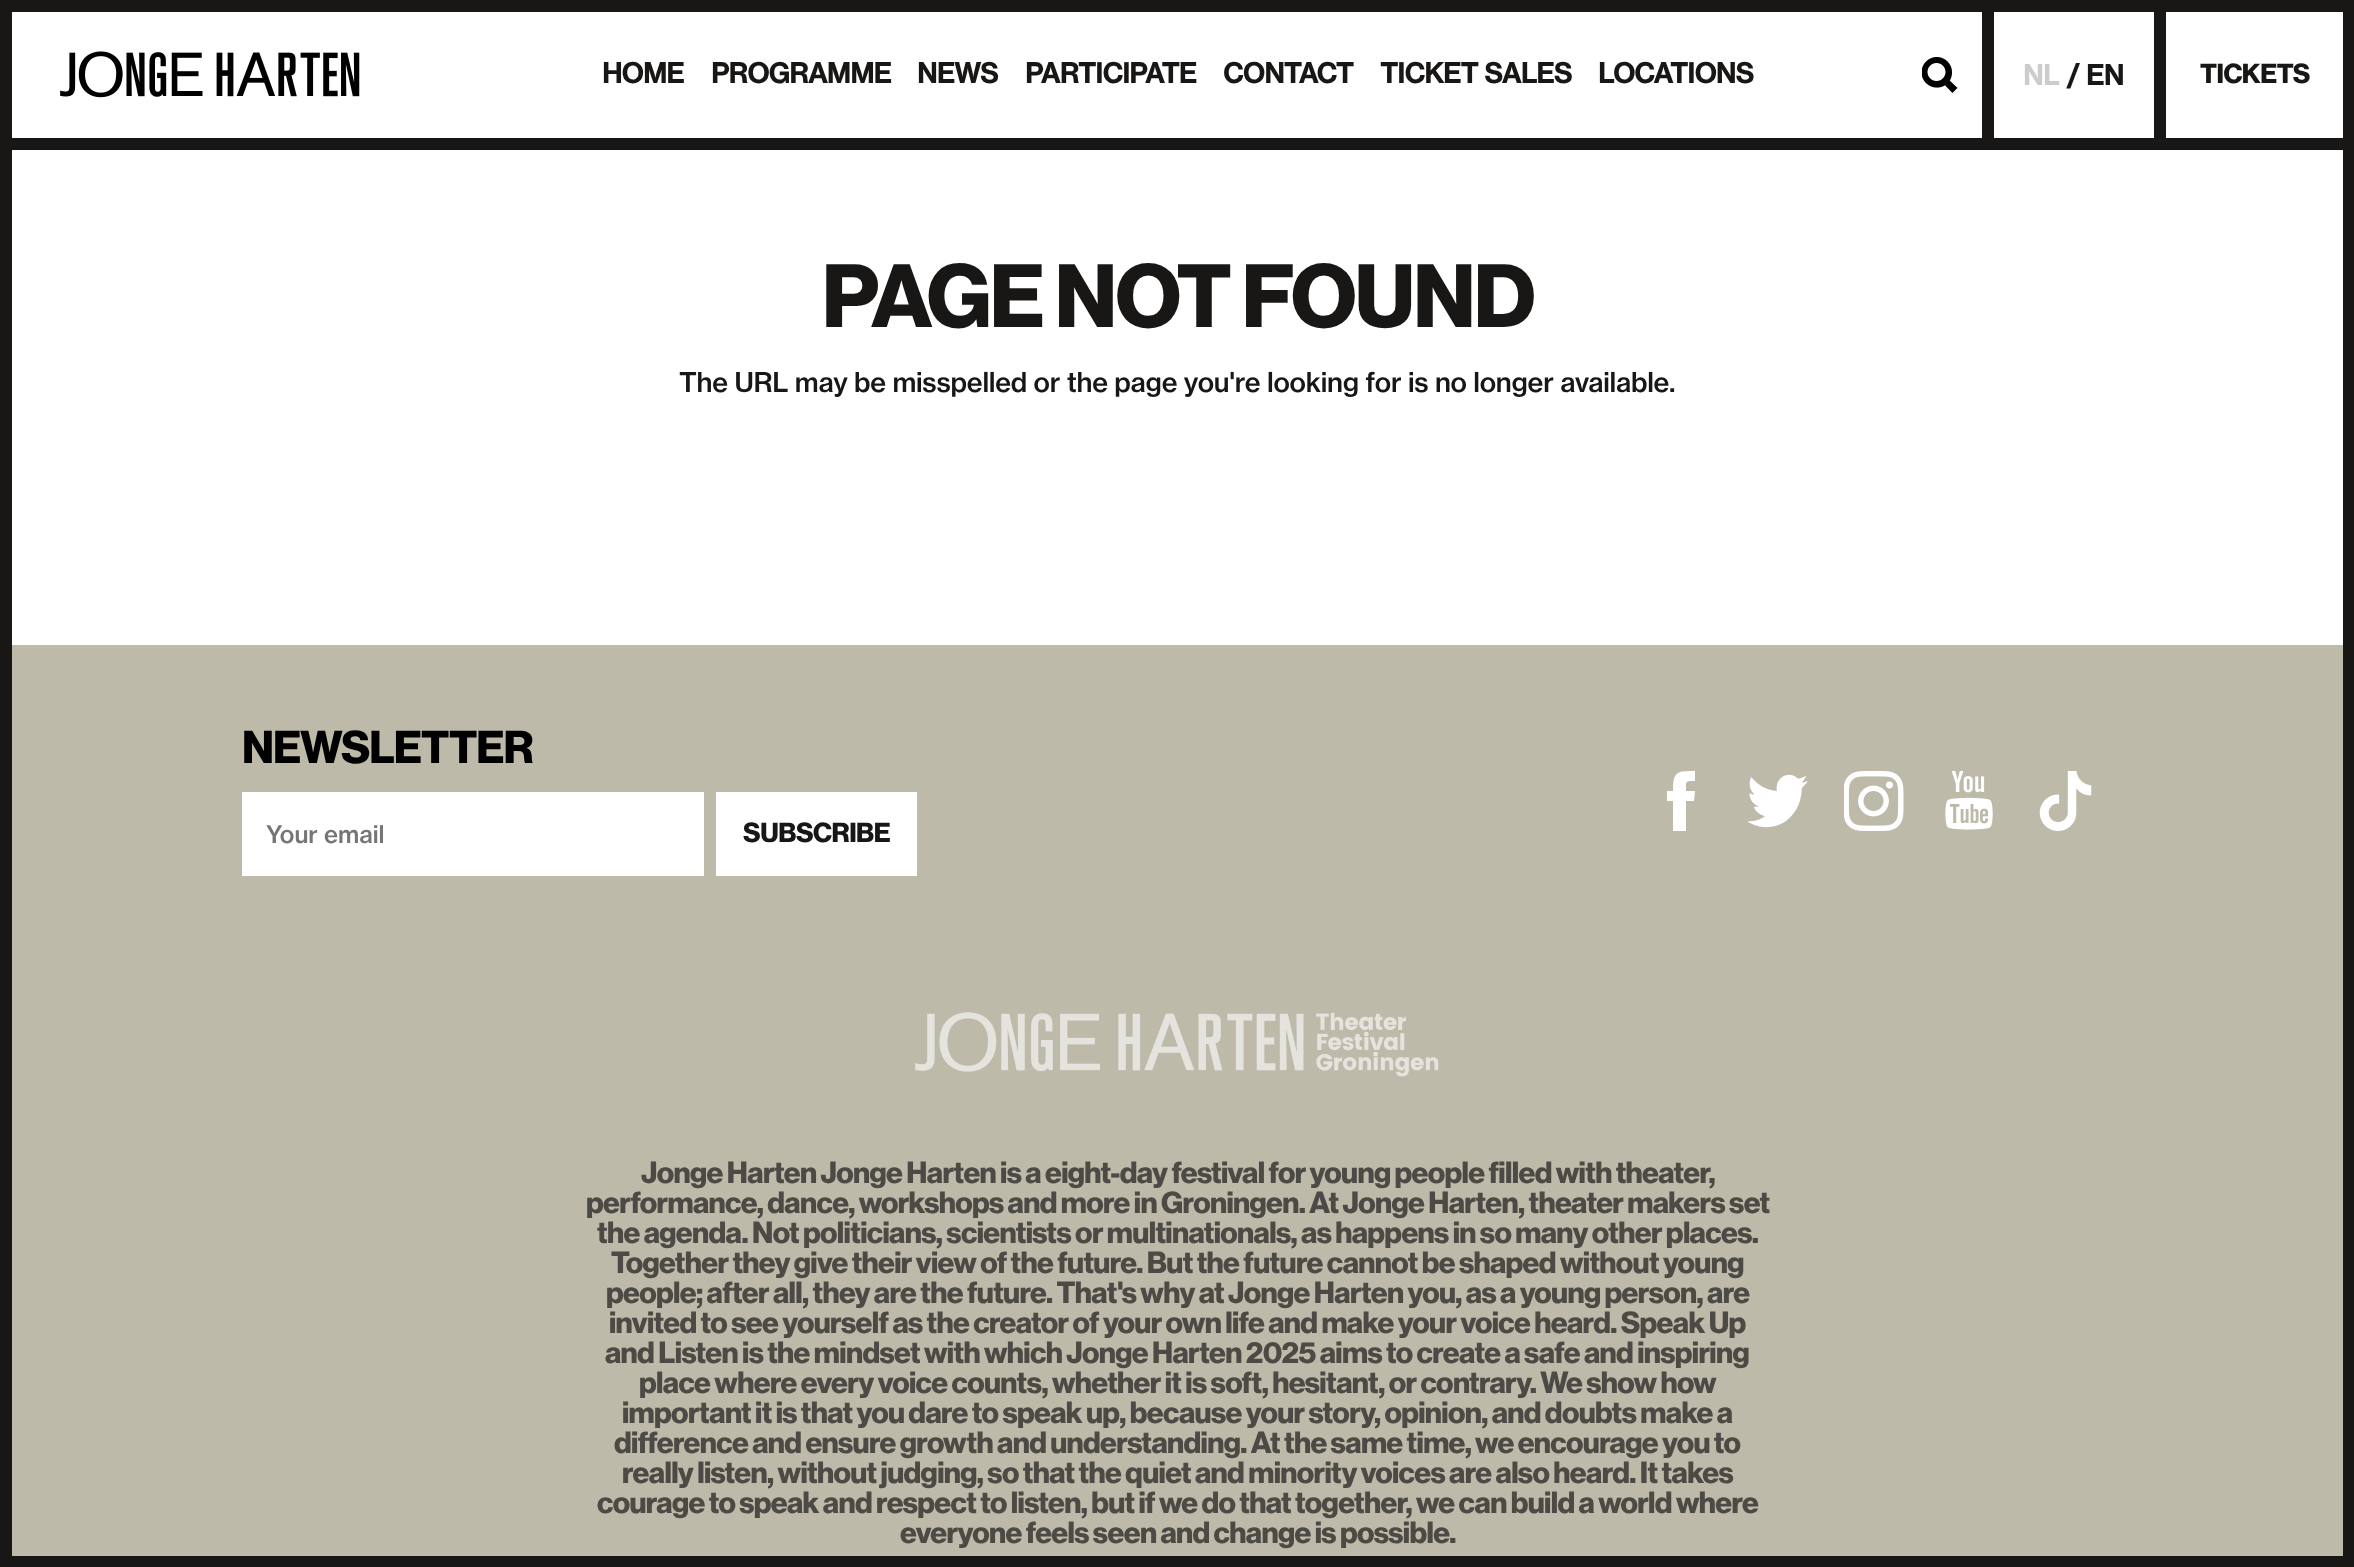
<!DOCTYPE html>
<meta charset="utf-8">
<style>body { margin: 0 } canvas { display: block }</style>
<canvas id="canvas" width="2354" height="1567"></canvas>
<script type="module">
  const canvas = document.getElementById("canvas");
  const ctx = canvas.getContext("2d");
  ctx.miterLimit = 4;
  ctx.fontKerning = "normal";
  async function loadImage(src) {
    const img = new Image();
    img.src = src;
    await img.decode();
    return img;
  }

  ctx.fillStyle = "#ffffff";
  ctx.fillRect(0, 0, 2354, 1567);
  ctx.strokeStyle = "#181715";
  ctx.lineWidth = 12;
  ctx.strokeRect(6, 6, 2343, 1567);
  ctx.strokeRect(6, 6, 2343, 138);
  ctx.letterSpacing = "-0.5px";
  ctx.font = "bold 27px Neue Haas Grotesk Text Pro";
  ctx.fillStyle = "#181715";
  ctx.fillText("HOME", 602, 83);
  ctx.fillText("PROGRAMME", 711, 83);
  ctx.fillText("NEWS", 917, 83);
  ctx.fillText("PARTICIPATE", 1025, 83);
  ctx.fillText("CONTACT", 1223, 83);
  ctx.fillText("TICKET SALES", 1380, 83);
  ctx.fillText("LOCATIONS", 1598, 83);
  ctx.drawImage(await loadImage("img1.png"), 60, 51, 300, 47);
  ctx.drawImage(await loadImage("img2.png"), 1922, 57, 36, 36);
  ctx.fillRect(1982, 12, 12, 126);
  ctx.letterSpacing = "-0.25px";
  ctx.fillStyle = "#cccccc";
  ctx.fillText("NL", 2023, 85);
  ctx.fillStyle = "#181715";
  ctx.fillText("/", 2067, 85);
  ctx.fillText("EN", 2086, 85);
  ctx.fillRect(2154, 12, 12, 126);
  ctx.letterSpacing = "-0.5px";
  ctx.font = "bold 27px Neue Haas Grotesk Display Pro";
  ctx.fillText("TICKETS", 2200, 83);
  ctx.letterSpacing = "-1.75px";
  ctx.font = "bold 87.75px Neue Haas Grotesk Display Pro";
  ctx.fillText("PAGE NOT FOUND", 822, 327);
  ctx.letterSpacing = "-0.25px";
  ctx.font = "500 27px Neue Haas Grotesk Text Pro";
  ctx.fillText("The URL may be misspelled or the page you're looking for is no longer available.", 679, 392);
  ctx.fillStyle = "#bdbaaa";
  ctx.fillRect(12, 645, 2331, 911);
  ctx.letterSpacing = "-1px";
  ctx.font = "bold 45px Neue Haas Grotesk Display Pro";
  ctx.fillStyle = "#000000";
  ctx.fillText("NEWSLETTER", 242, 763);
  ctx.fillStyle = "#ffffff";
  ctx.fillRect(242, 792, 462, 84);
  ctx.letterSpacing = "0px";
  ctx.font = "500 24px Neue Haas Grotesk Text Pro";
  ctx.fillStyle = "#757575";
  ctx.fillText("Your email", 266, 843);
  ctx.fillStyle = "#ffffff";
  ctx.fillRect(716, 792, 201, 84);
  ctx.letterSpacing = "-0.5px";
  ctx.font = "bold 27px Neue Haas Grotesk Display Pro";
  ctx.fillStyle = "#181715";
  ctx.fillText("SUBSCRIBE", 743, 842);
  ctx.fillStyle = "#ffffff";
  ctx.beginPath();
  ctx.moveTo(1686, 831);
  ctx.lineTo(1686, 801);
  ctx.lineTo(1694, 801);
  ctx.lineTo(1695, 791);
  ctx.lineTo(1686, 791);
  ctx.bezierCurveTo(1686, 781, 1685, 781, 1695, 781);
  ctx.lineTo(1695, 771);
  ctx.bezierCurveTo(1677, 771, 1673, 771, 1673, 791);
  ctx.lineTo(1667, 791);
  ctx.lineTo(1667, 801);
  ctx.lineTo(1673, 801);
  ctx.lineTo(1673, 831);
  ctx.closePath();
  ctx.fill("evenodd");
  ctx.drawImage(await loadImage("img3.png"), 1748, 774, 60, 54);
  ctx.drawImage(await loadImage("img4.png"), 1844, 771, 60, 60);
  ctx.drawImage(await loadImage("img5.png"), 1945, 771, 48, 59);
  ctx.drawImage(await loadImage("img6.png"), 2039, 771, 53, 60);
  ctx.drawImage(await loadImage("img7.png"), 915, 1012, 524, 65);
  ctx.letterSpacing = "-0.6px";
  ctx.font = "bold 30px Neue Haas Grotesk Display Pro";
  ctx.fillStyle = "#4c4a44";
  ctx.fillText("Jonge Harten Jonge Harten is a eight-day festival for young people filled with theater,", 641, 1183);
  ctx.fillText("performance, dance, workshops and more in Groningen. At Jonge Harten, theater makers set", 586, 1213);
  ctx.fillText("the agenda. Not politicians, scientists or multinationals, as happens in so many other places.", 597, 1243);
  ctx.fillText("Together they give their view of the future. But the future cannot be shaped without young", 611, 1273);
  ctx.fillText("people; after all, they are the future. That's why at Jonge Harten you, as a young person, are", 606, 1303);
  ctx.fillText("invited to see yourself as the creator of your own life and make your voice heard. Speak Up", 609, 1333);
  ctx.fillText("and Listen is the mindset with which Jonge Harten 2025 aims to create a safe and inspiring", 605, 1363);
  ctx.fillText("place where every voice counts, whether it is soft, hesitant, or contrary. We show how", 639, 1393);
  ctx.fillText("important it is that you dare to speak up, because your story, opinion, and doubts make a", 622, 1423);
  ctx.fillText("difference and ensure growth and understanding. At the same time, we encourage you to", 614, 1453);
  ctx.fillText("really listen, without judging, so that the quiet and minority voices are also heard. It takes", 622, 1483);
  ctx.fillText("courage to speak and respect to listen, but if we do that together, we can build a world where", 597, 1513);
  ctx.fillText("everyone feels seen and change is possible.", 900, 1543);
  ctx.fillStyle = "#181715";
  ctx.fillRect(12, 1556, 2331, 11);
</script>
